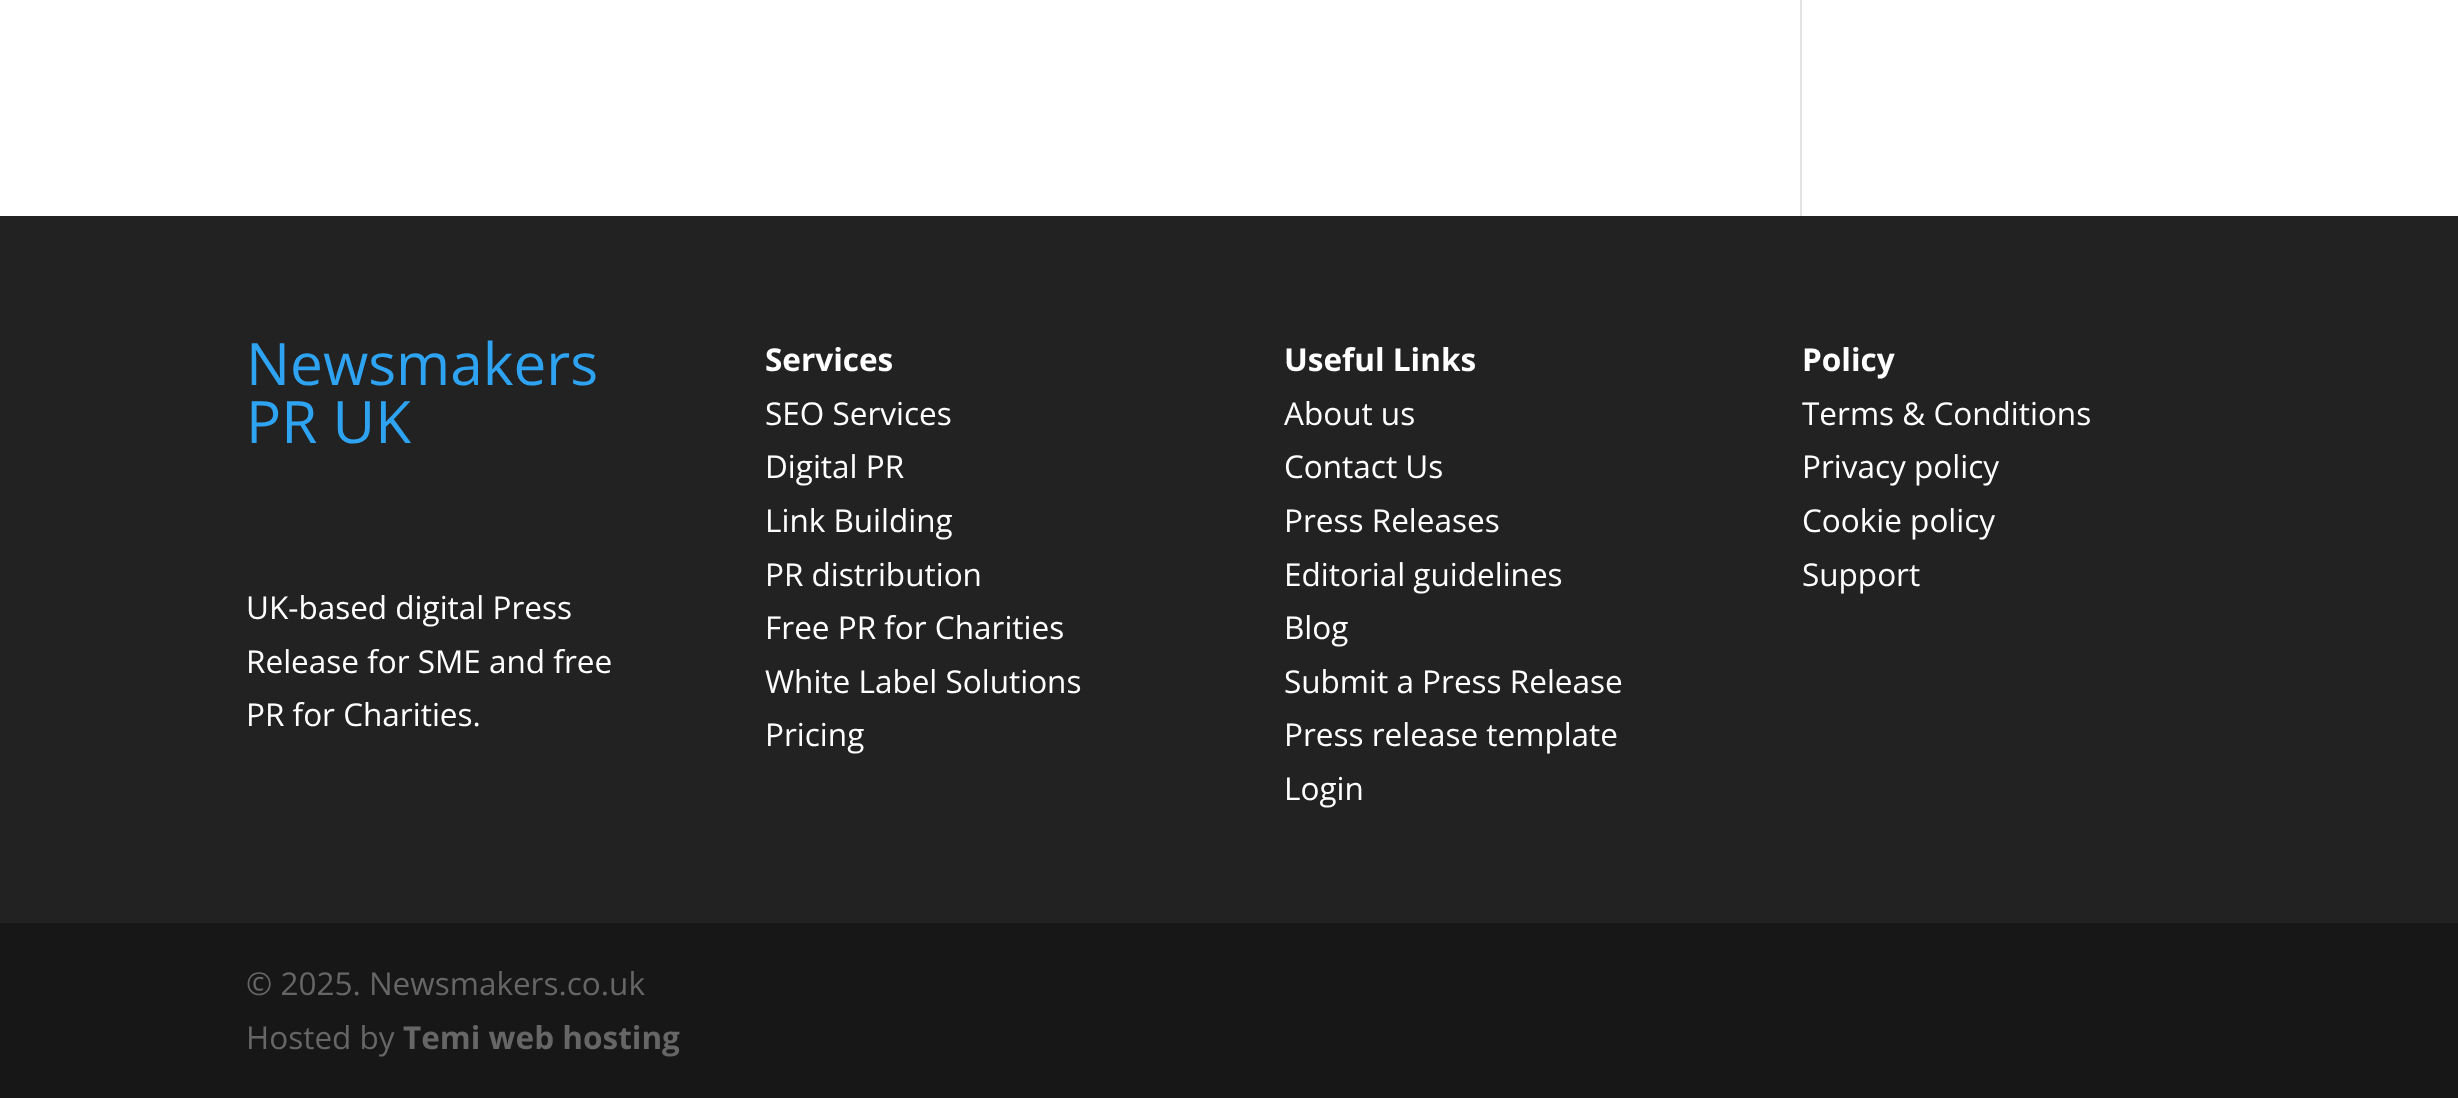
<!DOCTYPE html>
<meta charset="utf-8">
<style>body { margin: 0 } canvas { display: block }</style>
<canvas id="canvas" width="2458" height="1098"></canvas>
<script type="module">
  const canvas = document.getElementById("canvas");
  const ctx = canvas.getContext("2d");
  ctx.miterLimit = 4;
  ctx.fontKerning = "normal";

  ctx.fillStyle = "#ffffff";
  ctx.fillRect(0, 0, 2458, 1098);
  ctx.fillStyle = "#e2e2e2";
  ctx.fillRect(1800, 0, 2, 216);
  ctx.fillStyle = "#222222";
  ctx.fillRect(0, 216, 2458, 707);
  ctx.font = "58.5px Open Sans";
  ctx.fillStyle = "#2ea3f2";
  ctx.fillText("Newsmakers", 246, 385);
  ctx.fillText("PR UK", 246, 443);
  ctx.font = "31.5px Open Sans";
  ctx.fillStyle = "#ffffff";
  ctx.fillText("UK-based digital Press", 246, 619);
  ctx.fillText("Release for SME and free", 246, 673);
  ctx.fillText("PR for Charities.", 246, 726);
  ctx.font = "bold 31.5px Open Sans";
  ctx.fillText("Services", 765, 371);
  ctx.font = "31.5px Open Sans";
  ctx.fillText("SEO Services", 765, 425);
  ctx.fillText("Digital PR", 765, 478);
  ctx.fillText("Link Building", 765, 532);
  ctx.fillText("PR distribution", 765, 586);
  ctx.fillText("Free PR for Charities", 765, 639);
  ctx.fillText("White Label Solutions", 765, 693);
  ctx.fillText("Pricing", 765, 746);
  ctx.font = "bold 31.5px Open Sans";
  ctx.fillText("Useful Links", 1284, 371);
  ctx.font = "31.5px Open Sans";
  ctx.fillText("About us", 1284, 425);
  ctx.fillText("Contact Us", 1284, 478);
  ctx.fillText("Press Releases", 1284, 532);
  ctx.fillText("Editorial guidelines", 1284, 586);
  ctx.fillText("Blog", 1284, 639);
  ctx.fillText("Submit a Press Release", 1284, 693);
  ctx.fillText("Press release template", 1284, 746);
  ctx.fillText("Login", 1284, 800);
  ctx.font = "bold 31.5px Open Sans";
  ctx.fillText("Policy", 1802, 371);
  ctx.font = "31.5px Open Sans";
  ctx.fillText("Terms & Conditions", 1802, 425);
  ctx.fillText("Privacy policy", 1802, 478);
  ctx.fillText("Cookie policy", 1802, 532);
  ctx.fillText("Support", 1802, 586);
  ctx.fillStyle = "#171717";
  ctx.fillRect(0, 923, 2458, 175);
  ctx.fillStyle = "#666666";
  ctx.fillText("© 2025. Newsmakers.co.uk", 246, 995);
  ctx.fillText("Hosted by", 246, 1049);
  ctx.font = "bold 31.5px Open Sans";
  ctx.fillText("Temi web hosting", 403, 1049);
</script>
